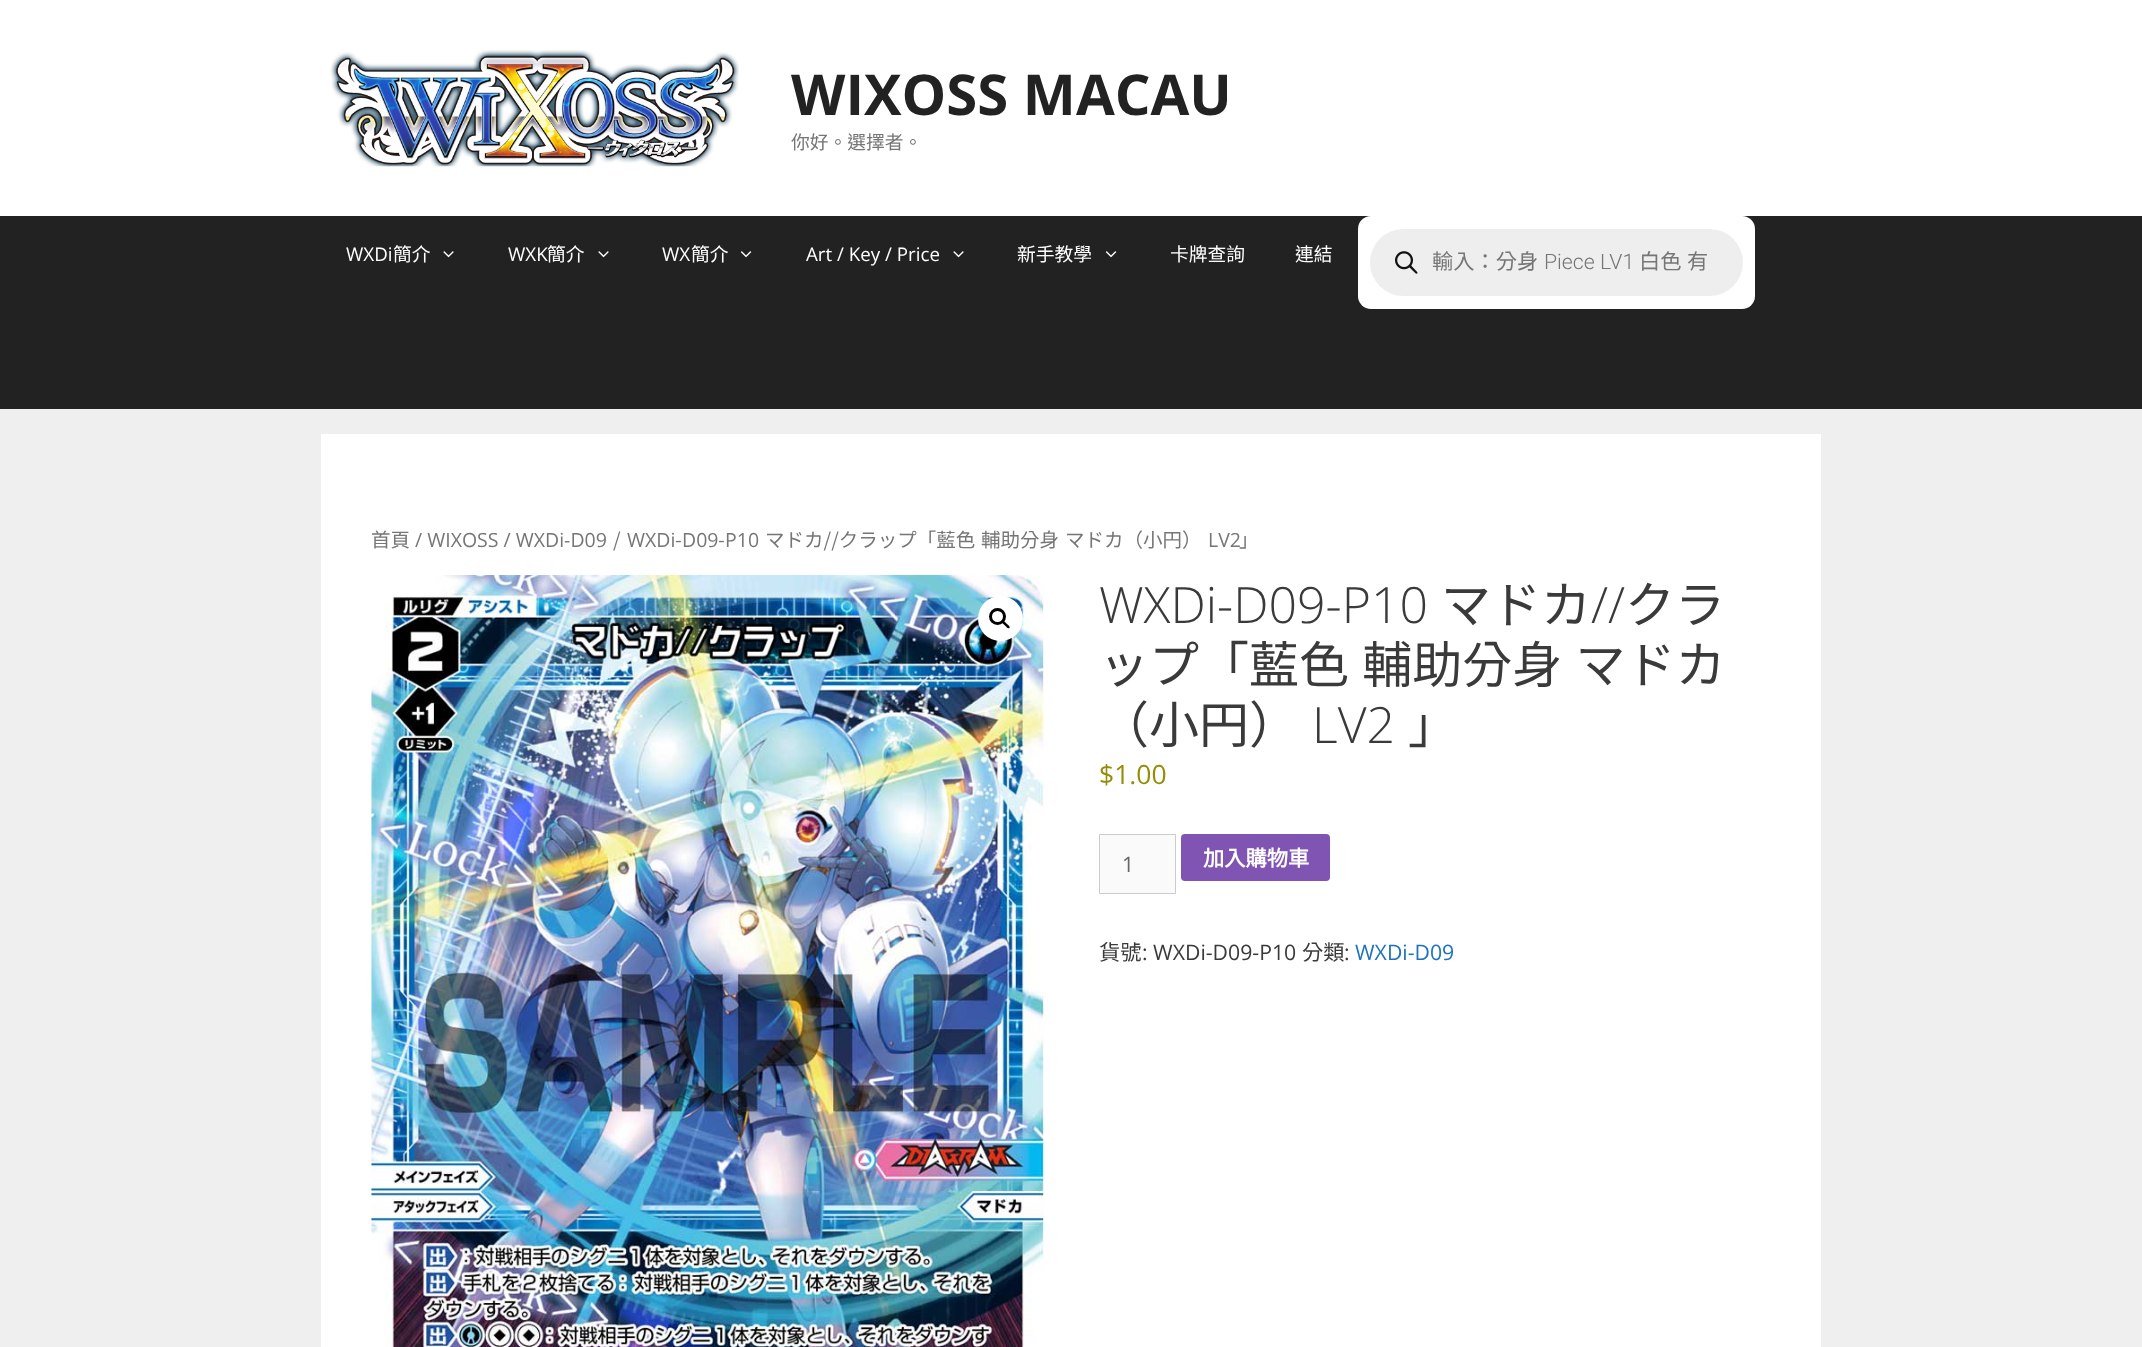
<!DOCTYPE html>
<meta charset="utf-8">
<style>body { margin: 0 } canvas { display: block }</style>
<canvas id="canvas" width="2142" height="1347"></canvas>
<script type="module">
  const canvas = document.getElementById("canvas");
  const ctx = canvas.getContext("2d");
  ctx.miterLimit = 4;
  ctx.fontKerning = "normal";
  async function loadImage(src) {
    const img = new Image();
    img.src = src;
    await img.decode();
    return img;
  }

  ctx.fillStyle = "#efefef";
  ctx.fillRect(0, 0, 2142, 1347);
  ctx.fillStyle = "#ffffff";
  ctx.fillRect(0, 0, 2142, 216);
  ctx.drawImage(await loadImage("img1.png"), 330, 50, 409, 117);
  ctx.font = "bold 56.25px Open Sans";
  ctx.fillStyle = "#222222";
  ctx.fillText("WIXOSS MACAU", 791, 115);
  ctx.font = "18.75px Noto Sans CJK TC";
  ctx.fillStyle = "#767676";
  ctx.fillText("你好。選擇者。", 791, 149);
  ctx.fillStyle = "#222222";
  ctx.fillRect(0, 216, 2142, 193);
  ctx.font = "18.75px Open Sans";
  ctx.fillStyle = "#ffffff";
  ctx.fillText("WXDi", 346, 261);
  ctx.font = "18.75px Noto Sans CJK TC";
  ctx.fillText("簡介", 393, 261);
  ctx.drawImage(await loadImage("img2.png"), 443, 251, 11, 7);
  ctx.font = "18.75px Open Sans";
  ctx.fillText("WXK", 508, 261);
  ctx.font = "18.75px Noto Sans CJK TC";
  ctx.fillText("簡介", 547, 261);
  ctx.drawImage(await loadImage("img2.png"), 598, 251, 11, 7);
  ctx.font = "18.75px Open Sans";
  ctx.fillText("WX", 662, 261);
  ctx.font = "18.75px Noto Sans CJK TC";
  ctx.fillText("簡介", 691, 261);
  ctx.drawImage(await loadImage("img3.png"), 740, 251, 12, 7);
  ctx.font = "18.75px Open Sans";
  ctx.fillText("Art / Key / Price", 806, 261);
  ctx.drawImage(await loadImage("img2.png"), 953, 251, 11, 7);
  ctx.font = "18.75px Noto Sans CJK TC";
  ctx.fillText("新手教學", 1017, 261);
  ctx.drawImage(await loadImage("img3.png"), 1105, 251, 12, 7);
  ctx.fillText("卡牌查詢", 1170, 261);
  ctx.fillText("連結", 1295, 261);
  ctx.beginPath();
  ctx.roundRect(1358, 216, 397, 93, 13);
  ctx.fill();
  ctx.fillStyle = "#eeeeee";
  ctx.beginPath();
  ctx.roundRect(1370, 229, 373, 67, 33.5);
  ctx.fill();
  ctx.drawImage(await loadImage("img4.png"), 1395, 251, 23, 23);
  ctx.font = "21.25px Noto Sans CJK TC";
  ctx.fillStyle = "#767676";
  ctx.fillText("輸入：分身", 1432, 269);
  ctx.font = "300 21.25px Roboto";
  ctx.fillText("Piece LV1", 1544, 269);
  ctx.font = "21.25px Noto Sans CJK TC";
  ctx.fillText("白色", 1639, 269);
  ctx.fillText("有", 1687, 269);
  ctx.fillStyle = "#ffffff";
  ctx.fillRect(321, 434, 1500, 913);
  ctx.font = "19.5px Noto Sans CJK TC";
  ctx.fillStyle = "#767676";
  ctx.fillText("首頁", 371, 547);
  ctx.font = "19.5px Open Sans";
  ctx.fillText("/ WIXOSS / WXDi-D09", 415, 547);
  ctx.font = "19.5px Noto Sans CJK TC";
  ctx.fillText("/", 613, 547);
  ctx.font = "19.5px Open Sans";
  ctx.fillText("WXDi", 627, 547);
  ctx.font = "19.5px Noto Sans CJK TC";
  ctx.fillText("-", 675, 547);
  ctx.font = "19.5px Open Sans";
  ctx.fillText("D09", 682, 547);
  ctx.font = "19.5px Noto Sans CJK TC";
  ctx.fillText("-", 718, 547);
  ctx.font = "19.5px Open Sans";
  ctx.fillText("P10", 725, 547);
  ctx.font = "19.5px Noto Sans CJK TC";
  ctx.fillText("マドカ//クラップ「藍色", 765, 547);
  ctx.fillText("輔助分身", 981, 547);
  ctx.fillText("マドカ（小円）", 1065, 547);
  ctx.font = "19.5px Open Sans";
  ctx.fillText("LV2", 1208, 547);
  ctx.font = "19.5px Noto Sans CJK TC";
  ctx.fillText("」", 1239, 547);
  ctx.drawImage(await loadImage("img5.png"), 371, 575, 673, 772);
  ctx.fillStyle = "#ffffff";
  ctx.beginPath();
  ctx.arc(1000.5, 618.5, 22.5, 0, Math.PI * 2);
  ctx.fill();
  ctx.beginPath();
  ctx.arc(997.5, 616.5, 7, 0, Math.PI * 2);
  ctx.strokeStyle = "#000000";
  ctx.lineWidth = 3;
  ctx.stroke();
  ctx.fillStyle = "#000000";
  ctx.beginPath();
  ctx.moveTo(1002, 621);
  ctx.bezierCurveTo(1003.5, 619.5, 1006, 623, 1006.5, 623.5);
  ctx.bezierCurveTo(1007.5, 624.5, 1010.5, 626.5, 1009.5, 628);
  ctx.bezierCurveTo(1008, 629.5, 1005.5, 626, 1005, 625.5);
  ctx.bezierCurveTo(1004, 624.5, 1001, 622.5, 1002, 621);
  ctx.closePath();
  ctx.fill();
  ctx.font = "300 50px Open Sans";
  ctx.fillStyle = "#3a3a3a";
  ctx.fillText("WXDi-D09-P10", 1099, 623);
  ctx.font = "50px Noto Sans CJK TC";
  ctx.fillText("マドカ", 1441, 623);
  ctx.font = "300 50px Open Sans";
  ctx.fillText("//", 1591, 623);
  ctx.font = "50px Noto Sans CJK TC";
  ctx.fillText("クラ", 1625, 623);
  ctx.wordSpacing = "2px";
  ctx.fillText("ップ「藍色 輔助分身 マドカ", 1099, 683);
  ctx.wordSpacing = "0px";
  ctx.fillText("（小円）", 1099, 743);
  ctx.font = "300 50px Open Sans";
  ctx.fillText("LV2", 1312, 743);
  ctx.font = "50px Noto Sans CJK TC";
  ctx.fillText("」", 1408, 743);
  ctx.font = "26.5px Open Sans";
  ctx.fillStyle = "#958e09";
  ctx.fillText("$1.00", 1099, 784);
  ctx.fillStyle = "#fafafa";
  ctx.beginPath();
  ctx.rect(1099.5, 834.5, 76, 59);
  ctx.fill();
  ctx.strokeStyle = "#cccccc";
  ctx.lineWidth = 1;
  ctx.stroke();
  ctx.font = "21.25px Open Sans";
  ctx.fillStyle = "#666666";
  ctx.fillText("1", 1122, 872);
  ctx.fillStyle = "#7f54b3";
  ctx.beginPath();
  ctx.roundRect(1181, 834, 149, 47, 4);
  ctx.fill();
  ctx.font = "bold 21.25px Noto Sans CJK TC";
  ctx.fillStyle = "#ffffff";
  ctx.fillText("加入購物車", 1203, 866);
  ctx.font = "21.25px Noto Sans CJK TC";
  ctx.fillStyle = "#3a3a3a";
  ctx.fillText("貨號", 1099, 960);
  ctx.font = "21.25px Open Sans";
  ctx.fillText(": WXDi-D09-P10", 1142, 960);
  ctx.font = "21.25px Noto Sans CJK TC";
  ctx.fillText("分類", 1302, 960);
  ctx.font = "21.25px Open Sans";
  ctx.fillText(":", 1344, 960);
  ctx.fillStyle = "#1e73be";
  ctx.fillText("WXDi-D09", 1355, 960);
</script>
